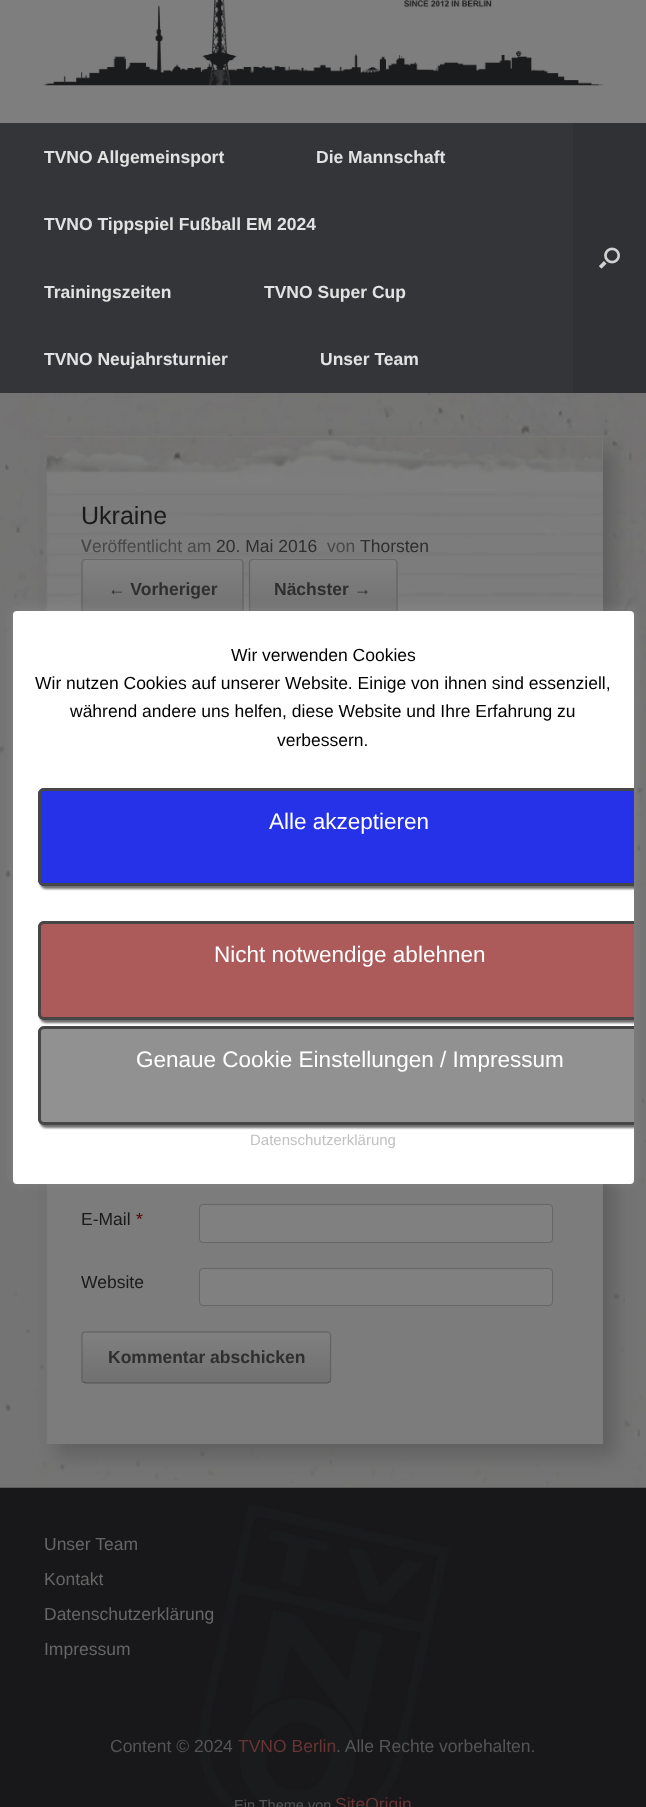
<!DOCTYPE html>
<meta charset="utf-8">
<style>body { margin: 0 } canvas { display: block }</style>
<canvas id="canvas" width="646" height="1807"></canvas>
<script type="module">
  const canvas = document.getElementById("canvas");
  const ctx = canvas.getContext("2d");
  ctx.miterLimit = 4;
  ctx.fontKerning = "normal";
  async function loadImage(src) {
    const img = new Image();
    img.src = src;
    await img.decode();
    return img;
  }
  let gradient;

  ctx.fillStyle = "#18181a";
  ctx.fillRect(0, 0, 646, 1807);
  ctx.fillStyle = "#7e7e7e";
  ctx.fillRect(0, 0, 646, 123);
  ctx.drawImage(await loadImage("img1.png"), 44, 0, 559, 86);
  ctx.fillStyle = "#343538";
  ctx.fillRect(0, 123, 573, 270);
  ctx.font = "bold 17.5px Liberation Sans";
  ctx.fillStyle = "#e2e2e2";
  ctx.fillText("TVNO Allgemeinsport", 44, 163);
  ctx.fillText("Die Mannschaft", 316, 163);
  ctx.fillText("TVNO Tippspiel Fußball EM 2024", 44, 230);
  ctx.fillText("Trainingszeiten", 44, 298);
  ctx.fillText("TVNO Super Cup", 264, 298);
  ctx.fillText("TVNO Neujahrsturnier", 44, 365);
  ctx.fillText("Unser Team", 320, 365);
  ctx.fillStyle = "#303134";
  ctx.fillRect(573, 123, 73, 270);
  ctx.drawImage(await loadImage("img2.png"), 598, 247, 22, 22);
  ctx.drawImage(await loadImage("img3.png"), 0, 393, 646, 1095);
  ctx.fillStyle = "#606060";
  ctx.filter = "blur(9.5px)";
  ctx.beginPath();
  ctx.rect(56, 449, 559, 1007);
  ctx.fill();
  ctx.filter = "none";
  ctx.fillStyle = "#7d7d7d";
  ctx.fillRect(44, 436, 559, 1008);
  ctx.drawImage(await loadImage("img4.png"), 44, 436, 559, 1008);
  ctx.font = "25px Liberation Sans";
  ctx.fillStyle = "#1a1a1a";
  ctx.fillText("Ukraine", 81, 524);
  ctx.font = "500 17.5px Noto Sans";
  ctx.fillStyle = "#484848";
  ctx.fillText("V", 81, 552);
  ctx.font = "17.5px Liberation Sans";
  ctx.fillText("eröffentlicht am", 92, 552);
  ctx.fillStyle = "#2f2f2f";
  ctx.fillText("20. Mai 2016", 216, 552);
  ctx.fillStyle = "#484848";
  ctx.fillText("von", 327, 552);
  ctx.fillStyle = "#2f2f2f";
  ctx.fillText("Thorsten", 360, 552);
  ctx.save();
  ctx.beginPath();
  ctx.roundRect(81, 559, 163, 61, 4);
  ctx.clip();
  gradient = ctx.createLinearGradient(83, 560, 83, 501);
  gradient.addColorStop(0, "#707070");
  gradient.addColorStop(1, "#808080");
  ctx.fillStyle = gradient;
  ctx.fillRect(81, 559, 163, 1);
  gradient = ctx.createLinearGradient(83, 619, 83, 560);
  gradient.addColorStop(0, "#707070");
  gradient.addColorStop(1, "#808080");
  ctx.fillStyle = gradient;
  ctx.fillRect(81, 560, 163, 51);
  ctx.restore();
  ctx.beginPath();
  ctx.moveTo(83, 560.5);
  ctx.lineTo(84.5, 559.5);
  ctx.lineTo(214, 559.5);
  ctx.lineTo(240, 559.5);
  ctx.lineTo(242, 560.5);
  ctx.strokeStyle = "#696969";
  ctx.lineWidth = 1.2;
  ctx.stroke();
  ctx.beginPath();
  ctx.moveTo(242, 560.5);
  ctx.lineTo(243, 562);
  ctx.lineTo(243, 616.5);
  ctx.lineTo(242, 618.5);
  ctx.strokeStyle = "#626262";
  ctx.stroke();
  ctx.beginPath();
  ctx.moveTo(83, 618.5);
  ctx.lineTo(82, 616.5);
  ctx.lineTo(82, 562);
  ctx.lineTo(83, 560.5);
  ctx.stroke();
  ctx.font = "bold 17.5px Liberation Sans";
  ctx.fillText("← Vorheriger", 108, 595);
  ctx.save();
  ctx.beginPath();
  ctx.roundRect(249, 559, 149, 61, 4);
  ctx.clip();
  gradient = ctx.createLinearGradient(250, 560, 250, 501);
  gradient.addColorStop(0, "#707070");
  gradient.addColorStop(1, "#808080");
  ctx.fillStyle = gradient;
  ctx.fillRect(249, 559, 149, 1);
  gradient = ctx.createLinearGradient(250, 619, 250, 560);
  gradient.addColorStop(0, "#707070");
  gradient.addColorStop(1, "#808080");
  ctx.fillStyle = gradient;
  ctx.fillRect(249, 560, 149, 51);
  ctx.restore();
  ctx.beginPath();
  ctx.moveTo(250.5, 560.5);
  ctx.lineTo(252.5, 559.5);
  ctx.lineTo(394, 559.5);
  ctx.lineTo(396, 560.5);
  ctx.strokeStyle = "#696969";
  ctx.stroke();
  ctx.beginPath();
  ctx.moveTo(396, 560.5);
  ctx.lineTo(397, 562);
  ctx.lineTo(397, 616.5);
  ctx.lineTo(396, 618.5);
  ctx.strokeStyle = "#626262";
  ctx.stroke();
  ctx.beginPath();
  ctx.moveTo(250.5, 618.5);
  ctx.lineTo(249.5, 616.5);
  ctx.lineTo(249.5, 562);
  ctx.lineTo(250.5, 560.5);
  ctx.stroke();
  ctx.fillText("Nächster →", 274, 595);
  ctx.font = "17.5px Liberation Sans";
  ctx.fillStyle = "#1a1a1a";
  ctx.fillText("E-Mail", 81, 1225);
  ctx.fillStyle = "#520401";
  ctx.fillText("*", 136, 1225);
  ctx.fillStyle = "#808080";
  ctx.beginPath();
  ctx.roundRect(199.5, 1204.5, 353, 38, 3.5);
  ctx.fill();
  ctx.strokeStyle = "#666666";
  ctx.lineWidth = 1;
  ctx.stroke();
  ctx.fillStyle = "#1a1a1a";
  ctx.fillText("Website", 81, 1288);
  ctx.fillStyle = "#808080";
  ctx.beginPath();
  ctx.roundRect(199.5, 1268.5, 353, 37, 3.5);
  ctx.fill();
  ctx.stroke();
  ctx.save();
  ctx.beginPath();
  ctx.roundRect(81, 1331, 250, 53, 4);
  ctx.clip();
  gradient = ctx.createLinearGradient(83, 1333, 83, 1283);
  gradient.addColorStop(0, "#707070");
  gradient.addColorStop(1, "#808080");
  ctx.fillStyle = gradient;
  ctx.fillRect(81, 1331, 250, 2);
  gradient = ctx.createLinearGradient(83, 1383, 83, 1333);
  gradient.addColorStop(0, "#707070");
  gradient.addColorStop(1, "#808080");
  ctx.fillStyle = gradient;
  ctx.fillRect(81, 1333, 250, 50);
  gradient = ctx.createLinearGradient(83, 1433, 83, 1383);
  gradient.addColorStop(0, "#707070");
  gradient.addColorStop(1, "#808080");
  ctx.fillStyle = gradient;
  ctx.fillRect(81, 1383, 250, 1);
  ctx.restore();
  ctx.beginPath();
  ctx.moveTo(83, 1333);
  ctx.lineTo(85, 1332);
  ctx.lineTo(327.5, 1332);
  ctx.lineTo(329.5, 1333);
  ctx.strokeStyle = "#696969";
  ctx.lineWidth = 1.2;
  ctx.stroke();
  ctx.beginPath();
  ctx.moveTo(329.5, 1333);
  ctx.lineTo(330.5, 1334.5);
  ctx.lineTo(330.5, 1380.5);
  ctx.lineTo(329.5, 1382);
  ctx.strokeStyle = "#626262";
  ctx.stroke();
  ctx.beginPath();
  ctx.moveTo(329.5, 1382);
  ctx.lineTo(327.5, 1383);
  ctx.lineTo(85, 1383);
  ctx.lineTo(83, 1382);
  ctx.strokeStyle = "#505050";
  ctx.stroke();
  ctx.beginPath();
  ctx.moveTo(83, 1382);
  ctx.lineTo(82, 1380.5);
  ctx.lineTo(82, 1334.5);
  ctx.lineTo(83, 1333);
  ctx.strokeStyle = "#626262";
  ctx.stroke();
  ctx.font = "bold 17.5px Liberation Sans";
  ctx.fillStyle = "#2f2f2f";
  ctx.fillText("Kommentar abschicken", 108, 1363);
  ctx.drawImage(await loadImage("img5.png"), 198, 1504, 252, 303);
  ctx.font = "17.5px Liberation Sans";
  ctx.fillStyle = "#666666";
  ctx.fillText("Unser Team", 44, 1550);
  ctx.fillText("Kontakt", 44, 1585);
  ctx.fillText("Datenschutzerklärung", 44, 1620);
  ctx.fillText("Impressum", 44, 1655);
  ctx.fillStyle = "#555555";
  ctx.fillText("Content © 2024", 110, 1752);
  ctx.fillStyle = "#663535";
  ctx.fillText("TVNO Berlin", 238, 1752);
  ctx.fillStyle = "#555555";
  ctx.fillText(". Alle Rechte vorbehalten.", 336, 1752);
  ctx.font = "14.5px Liberation Sans";
  ctx.fillText("Ein Theme von", 234, 1810);
  ctx.font = "17.5px Liberation Sans";
  ctx.fillStyle = "#663535";
  ctx.fillText("SiteOrigin", 335, 1810);
  ctx.fillStyle = "rgba(172, 171, 171, 0.3)";
  ctx.filter = "blur(6px)";
  ctx.beginPath();
  ctx.roundRect(13, 610, 621, 573, 4);
  ctx.fill();
  ctx.filter = "none";
  ctx.fillStyle = "#ffffff";
  ctx.beginPath();
  ctx.roundRect(13, 611, 621, 573, 4);
  ctx.fill();
  ctx.fillStyle = "#000000";
  ctx.fillText("Wir verwenden Cookies", 231, 661);
  ctx.fillText("Wir nutzen Cookies auf unserer Website. Einige von ihnen sind essenziell,", 35, 689);
  ctx.fillText("während andere uns helfen, diese Website und Ihre Erfahrung zu", 70, 717);
  ctx.fillText("verbessern.", 277, 746);
  ctx.save();
  ctx.beginPath();
  ctx.roundRect(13, 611, 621, 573, 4);
  ctx.clip();
  ctx.fillStyle = "#6f6f6f";
  ctx.filter = "blur(1px)";
  ctx.beginPath();
  ctx.roundRect(40, 790, 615, 99, 6);
  ctx.fill();
  ctx.filter = "none";
  ctx.restore();
  ctx.fillStyle = "#2532e8";
  ctx.beginPath();
  ctx.roundRect(38, 788, 596, 98, [6, 0, 0, 6]);
  ctx.fill();
  ctx.fillStyle = "#464646";
  ctx.beginPath();
  ctx.moveTo(44, 788);
  ctx.bezierCurveTo(41, 788, 38, 791, 38, 794);
  ctx.lineTo(38, 880);
  ctx.bezierCurveTo(38, 883, 41, 886, 44, 886);
  ctx.lineTo(634, 886);
  ctx.lineTo(634, 883);
  ctx.lineTo(44, 883);
  ctx.bezierCurveTo(42, 883, 41, 882, 41, 880);
  ctx.lineTo(41, 794);
  ctx.bezierCurveTo(41, 792, 42, 791, 44, 791);
  ctx.lineTo(634, 791);
  ctx.lineTo(634, 788);
  ctx.closePath();
  ctx.fill();
  ctx.font = "22.5px Liberation Sans";
  ctx.fillStyle = "#ffffff";
  ctx.fillText("Alle akzeptieren", 269, 829);
  ctx.save();
  ctx.beginPath();
  ctx.roundRect(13, 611, 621, 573, 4);
  ctx.clip();
  ctx.fillStyle = "#6f6f6f";
  ctx.filter = "blur(1px)";
  ctx.beginPath();
  ctx.roundRect(40, 924, 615, 99, 6);
  ctx.fill();
  ctx.filter = "none";
  ctx.restore();
  ctx.fillStyle = "#ad5a5a";
  ctx.beginPath();
  ctx.roundRect(38, 921, 596, 99, [6, 0, 0, 6]);
  ctx.fill();
  ctx.fillStyle = "#464646";
  ctx.beginPath();
  ctx.moveTo(44, 921);
  ctx.bezierCurveTo(41, 921, 38, 924, 38, 927);
  ctx.lineTo(38, 1014);
  ctx.bezierCurveTo(38, 1017, 41, 1020, 44, 1020);
  ctx.lineTo(634, 1020);
  ctx.lineTo(634, 1017);
  ctx.lineTo(44, 1017);
  ctx.bezierCurveTo(42, 1017, 41, 1016, 41, 1014);
  ctx.lineTo(41, 927);
  ctx.bezierCurveTo(41, 925, 42, 924, 44, 924);
  ctx.lineTo(634, 924);
  ctx.lineTo(634, 921);
  ctx.closePath();
  ctx.fill();
  ctx.fillStyle = "#ffffff";
  ctx.fillText("Nicht notwendige ablehnen", 214, 962);
  ctx.save();
  ctx.beginPath();
  ctx.roundRect(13, 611, 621, 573, 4);
  ctx.clip();
  ctx.fillStyle = "#6f6f6f";
  ctx.filter = "blur(1px)";
  ctx.beginPath();
  ctx.roundRect(40, 1029, 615, 99, 6);
  ctx.fill();
  ctx.filter = "none";
  ctx.restore();
  ctx.fillStyle = "#919191";
  ctx.beginPath();
  ctx.roundRect(38, 1026, 596, 99, [6, 0, 0, 6]);
  ctx.fill();
  ctx.fillStyle = "#464646";
  ctx.beginPath();
  ctx.moveTo(44, 1026);
  ctx.bezierCurveTo(41, 1026, 38, 1029, 38, 1032);
  ctx.lineTo(38, 1119);
  ctx.bezierCurveTo(38, 1122, 41, 1125, 44, 1125);
  ctx.lineTo(634, 1125);
  ctx.lineTo(634, 1122);
  ctx.lineTo(44, 1122);
  ctx.bezierCurveTo(42, 1122, 41, 1121, 41, 1119);
  ctx.lineTo(41, 1032);
  ctx.bezierCurveTo(41, 1030, 42, 1029, 44, 1029);
  ctx.lineTo(634, 1029);
  ctx.lineTo(634, 1026);
  ctx.closePath();
  ctx.fill();
  ctx.fillStyle = "#ffffff";
  ctx.fillText("Genaue Cookie Einstellungen / Impressum", 136, 1067);
  ctx.font = "15px Liberation Sans";
  ctx.fillStyle = "#c1c1c1";
  ctx.fillText("Datenschutzerklärung", 250, 1145);
</script>
